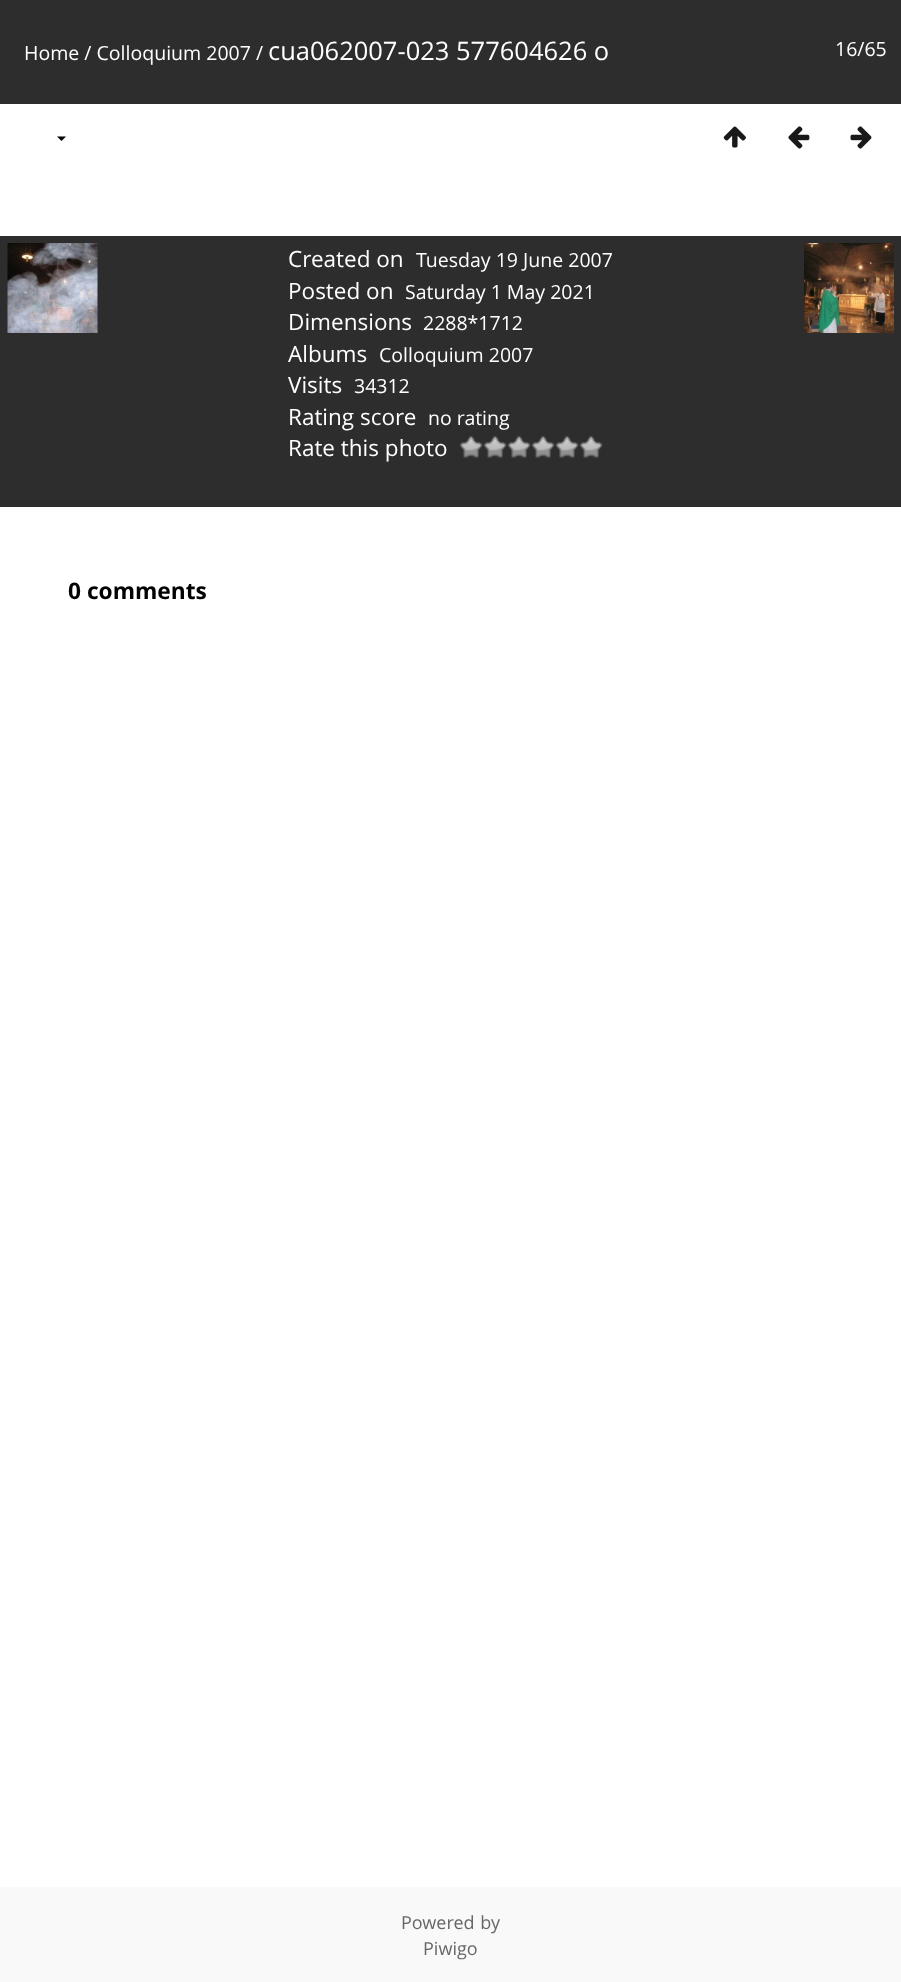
<!DOCTYPE html>
<meta charset="utf-8">
<style>body { margin: 0 } canvas { display: block }</style>
<canvas id="canvas" width="901" height="1982"></canvas>
<script type="module">
  const canvas = document.getElementById("canvas");
  const ctx = canvas.getContext("2d");
  ctx.miterLimit = 4;
  ctx.fontKerning = "normal";
  async function loadImage(src) {
    const img = new Image();
    img.src = src;
    await img.decode();
    return img;
  }

  ctx.fillStyle = "#ffffff";
  ctx.fillRect(0, 0, 901, 1982);
  ctx.fillStyle = "#2d2d2d";
  ctx.fillRect(0, 0, 901, 104);
  ctx.font = "19.5px Open Sans";
  ctx.fillStyle = "#ffffff";
  ctx.fillText("Home / Colloquium 2007 /", 24, 60);
  ctx.font = "25.5px Open Sans";
  ctx.fillText("cua062007-023 577604626 o", 268, 60);
  ctx.font = "19.5px Open Sans";
  ctx.fillText("16/65", 835, 56);
  ctx.fillStyle = "#000000";
  ctx.beginPath();
  ctx.moveTo(57, 136.5);
  ctx.lineTo(66, 136.5);
  ctx.lineTo(61.5, 141);
  ctx.closePath();
  ctx.fill();
  ctx.drawImage(await loadImage("img1.png"), 723, 126, 23, 22);
  ctx.drawImage(await loadImage("img2.png"), 788, 126, 22, 23);
  ctx.drawImage(await loadImage("img3.png"), 850, 126, 22, 23);
  ctx.fillStyle = "#2d2d2d";
  ctx.fillRect(0, 236, 901, 271);
  ctx.drawImage(await loadImage("img4.png"), 7, 243, 91, 90);
  ctx.drawImage(await loadImage("img5.png"), 804, 243, 90, 90);
  ctx.font = "22.5px Open Sans";
  ctx.fillStyle = "#ffffff";
  ctx.fillText("Created on", 288, 267);
  ctx.font = "19.5px Open Sans";
  ctx.fillText("Tuesday 19 June 2007", 416, 267);
  ctx.font = "22.5px Open Sans";
  ctx.fillText("Posted on", 288, 299);
  ctx.font = "19.5px Open Sans";
  ctx.fillText("Saturday 1 May 2021", 405, 299);
  ctx.font = "22.5px Open Sans";
  ctx.fillText("Dimensions", 288, 330);
  ctx.font = "19.5px Open Sans";
  ctx.fillText("2288*1712", 423, 330);
  ctx.font = "22.5px Open Sans";
  ctx.fillText("Albums", 288, 362);
  ctx.font = "19.5px Open Sans";
  ctx.fillText("Colloquium 2007", 379, 362);
  ctx.font = "22.5px Open Sans";
  ctx.fillText("Visits", 288, 393);
  ctx.font = "19.5px Open Sans";
  ctx.fillText("34312", 354, 393);
  ctx.font = "22.5px Open Sans";
  ctx.fillText("Rating score", 288, 425);
  ctx.font = "19.5px Open Sans";
  ctx.fillText("no rating", 428, 425);
  ctx.font = "22.5px Open Sans";
  ctx.fillText("Rate this photo", 288, 456);
  ctx.drawImage(await loadImage("img6.png"), 459, 436, 24, 22);
  ctx.drawImage(await loadImage("img6.png"), 483, 436, 24, 22);
  ctx.drawImage(await loadImage("img7.png"), 507, 436, 24, 22);
  ctx.drawImage(await loadImage("img8.png"), 531, 436, 24, 22);
  ctx.drawImage(await loadImage("img9.png"), 555, 436, 24, 22);
  ctx.drawImage(await loadImage("img6.png"), 579, 436, 24, 22);
  ctx.font = "bold 22.75px Open Sans";
  ctx.fillStyle = "#000000";
  ctx.fillText("0 comments", 68, 599);
  ctx.fillStyle = "#f9f9f9";
  ctx.fillRect(0, 1887, 901, 95);
  ctx.wordSpacing = "1px";
  ctx.font = "18px Open Sans";
  ctx.fillStyle = "#666666";
  ctx.fillText("Powered by", 401, 1929);
  ctx.wordSpacing = "0px";
  ctx.fillText("Piwigo", 423, 1955);
</script>
